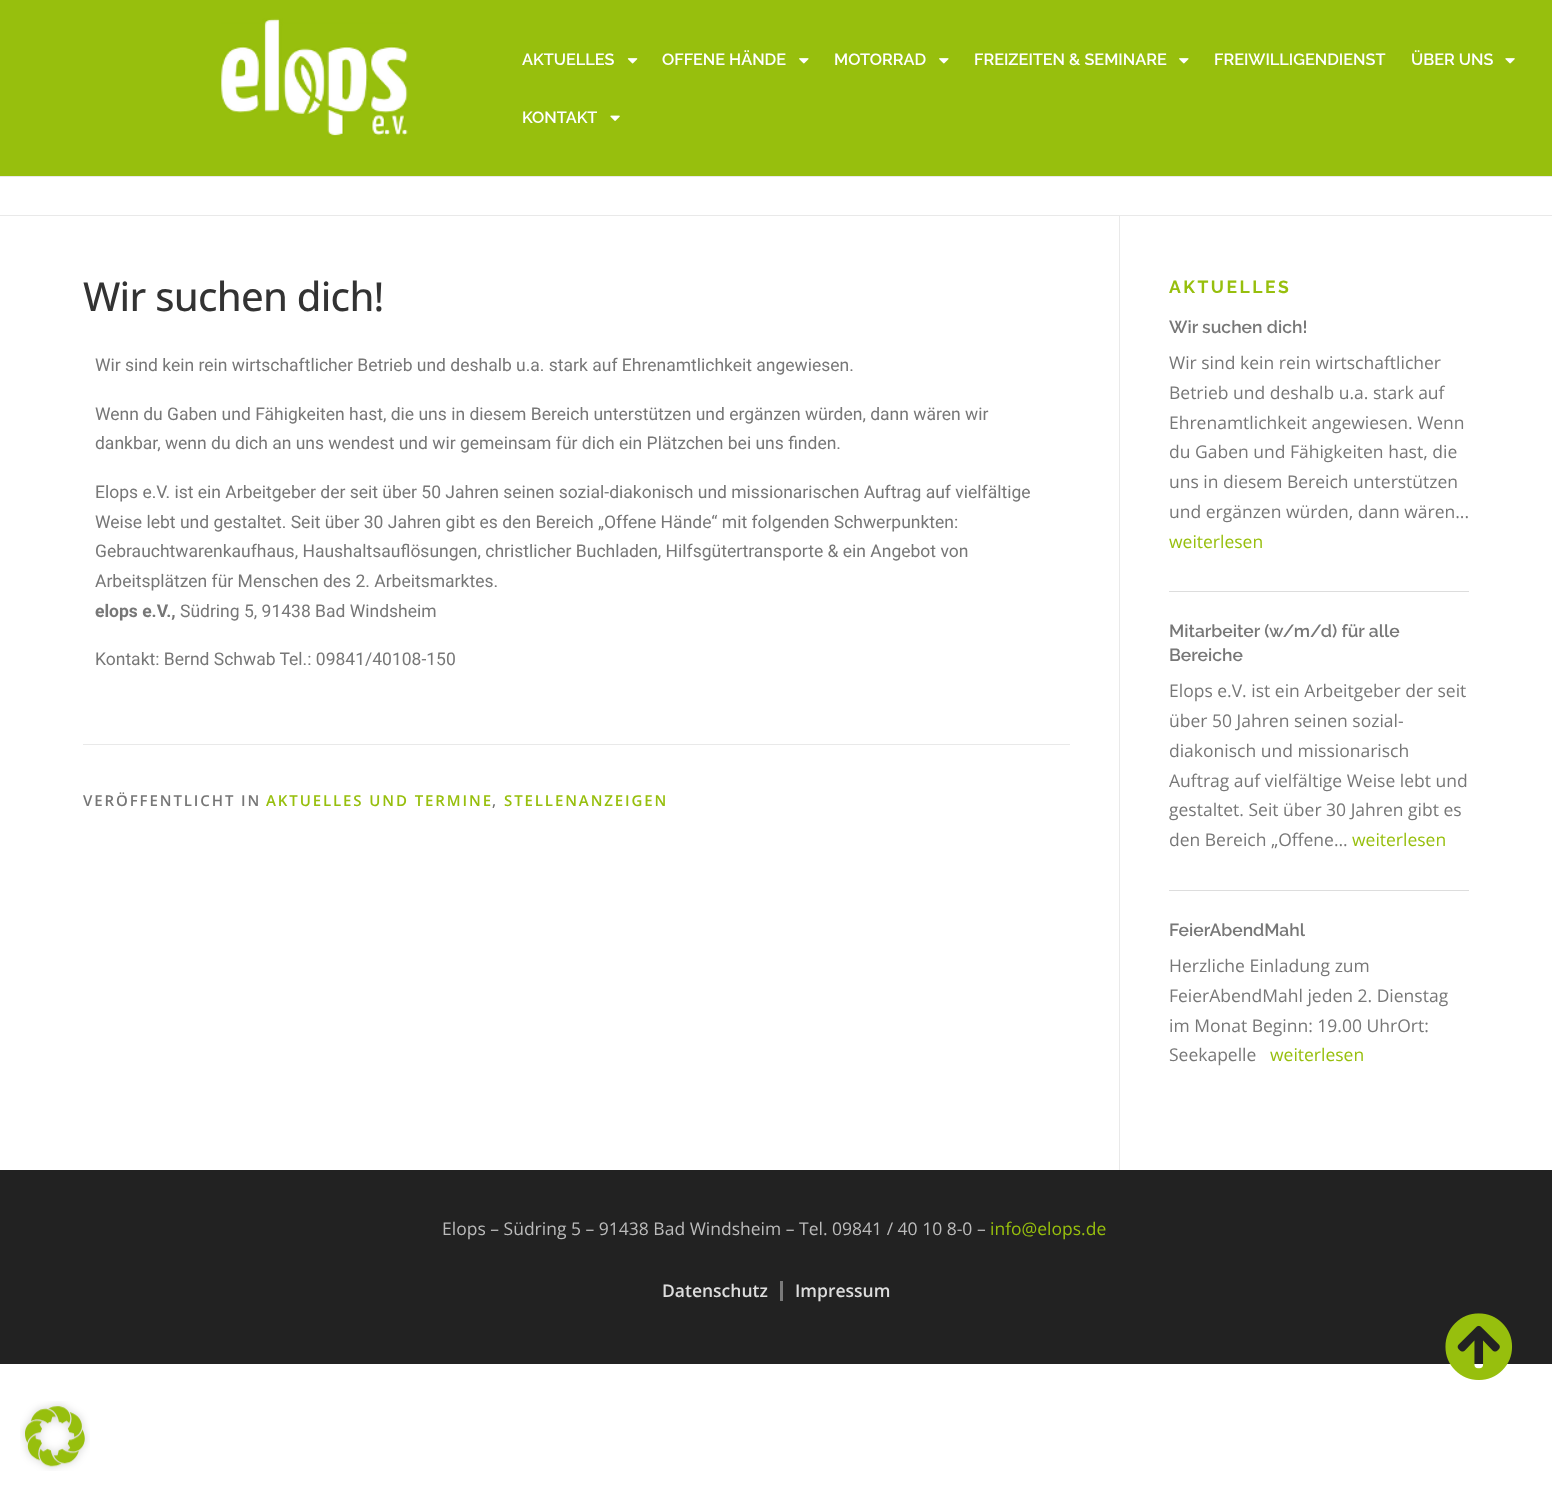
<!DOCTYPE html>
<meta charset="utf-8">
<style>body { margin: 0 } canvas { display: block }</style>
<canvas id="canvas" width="1552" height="1491"></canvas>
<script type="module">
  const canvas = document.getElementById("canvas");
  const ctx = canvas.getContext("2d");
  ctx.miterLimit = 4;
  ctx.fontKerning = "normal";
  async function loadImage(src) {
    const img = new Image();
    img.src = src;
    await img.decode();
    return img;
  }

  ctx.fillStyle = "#ffffff";
  ctx.fillRect(0, 0, 1552, 1491);
  ctx.fillStyle = "#97bf0d";
  ctx.fillRect(0, 0, 1552, 176);
  ctx.fillStyle = "#222222";
  ctx.fillRect(0, 1170, 1552, 194);
  ctx.drawImage(await loadImage("img1.png"), 1445, 1313, 68, 67);
  ctx.drawImage(await loadImage("img2.png"), 221, 18, 187, 119);
  ctx.font = "600 16.25px Raleway";
  ctx.fillStyle = "#ffffff";
  ctx.fillText("AKTUELLES", 522, 65);
  ctx.drawImage(await loadImage("img3.png"), 627, 58, 11, 6);
  ctx.fillText("OFFENE HÄNDE", 662, 65);
  ctx.drawImage(await loadImage("img4.png"), 799, 58, 10, 6);
  ctx.fillText("MOTORRAD", 834, 65);
  ctx.drawImage(await loadImage("img4.png"), 939, 58, 10, 6);
  ctx.fillText("FREIZEITEN & SEMINARE", 974, 65);
  ctx.drawImage(await loadImage("img4.png"), 1179, 58, 10, 6);
  ctx.fillText("FREIWILLIGENDIENST", 1214, 65);
  ctx.fillText("ÜBER UNS", 1411, 65);
  ctx.drawImage(await loadImage("img5.png"), 1505, 58, 10, 6);
  ctx.fillText("KONTAKT", 522, 123);
  ctx.drawImage(await loadImage("img6.png"), 610, 115, 10, 6);
  ctx.fillStyle = "#e9e9e9";
  ctx.fillRect(0, 176, 1552, 1);
  ctx.fillRect(0, 215, 1552, 1);
  ctx.letterSpacing = "-0.75px";
  ctx.font = "500 40px Open Sans";
  ctx.fillStyle = "#333333";
  ctx.fillText("Wir suchen dich!", 83, 311);
  ctx.letterSpacing = "0px";
  ctx.font = "17.5px Roboto";
  ctx.fillStyle = "#777777";
  ctx.fillText("Wir sind kein rein wirtschaftlicher Betrieb und deshalb u.a. stark auf Ehrenamtlichkeit angewiesen.", 95, 371);
  ctx.fillText("Wenn du Gaben und Fähigkeiten hast, die uns in diesem Bereich unterstützen und ergänzen würden, dann wären wir", 95, 420);
  ctx.fillText("dankbar, wenn du dich an uns wendest und wir gemeinsam für dich ein Plätzchen bei uns finden.", 95, 449);
  ctx.fillText("Elops e.V. ist ein Arbeitgeber der seit über 50 Jahren seinen sozial-diakonisch und missionarischen Auftrag auf vielfältige", 95, 498);
  ctx.fillText("Weise lebt und gestaltet. Seit über 30 Jahren gibt es den Bereich „Offene Hände“ mit folgenden Schwerpunkten:", 95, 528);
  ctx.fillText("Gebrauchtwarenkaufhaus, Haushaltsauflösungen, christlicher Buchladen, Hilfsgütertransporte & ein Angebot von", 95, 557);
  ctx.fillText("Arbeitsplätzen für Menschen des 2. Arbeitsmarktes.", 95, 587);
  ctx.font = "bold 17.5px Roboto";
  ctx.fillText("elops e.V.,", 95, 617);
  ctx.font = "17.5px Roboto";
  ctx.fillText("Südring 5, 91438 Bad Windsheim", 180, 617);
  ctx.fillText("Kontakt: Bernd Schwab Tel.: 09841/40108-150", 95, 665);
  ctx.fillStyle = "#e9e9e9";
  ctx.fillRect(83, 744, 987, 1);
  ctx.letterSpacing = "1.9px";
  ctx.font = "600 15px Open Sans";
  ctx.fillStyle = "#777777";
  ctx.fillText("VERÖFFENTLICHT IN", 83, 806);
  ctx.fillStyle = "#97bf0d";
  ctx.fillText("AKTUELLES UND TERMINE", 266, 806);
  ctx.fillStyle = "#777777";
  ctx.fillText(",", 492, 806);
  ctx.fillStyle = "#97bf0d";
  ctx.fillText("STELLENANZEIGEN", 504, 806);
  ctx.fillStyle = "#e9e9e9";
  ctx.fillRect(1119, 216, 1, 954);
  ctx.letterSpacing = "2.5px";
  ctx.font = "bold 17.5px Raleway";
  ctx.fillStyle = "#97bf0d";
  ctx.fillText("AKTUELLES", 1169, 293);
  ctx.fillStyle = "#dddddd";
  ctx.fillRect(1169, 591, 300, 1);
  ctx.letterSpacing = "0px";
  ctx.font = "600 17.5px Raleway";
  ctx.fillStyle = "#777777";
  ctx.fillText("Wir suchen dich!", 1169, 333);
  ctx.font = "17.5px Open Sans";
  ctx.fillText("Wir sind kein rein wirtschaftlicher", 1169, 369);
  ctx.fillText("Betrieb und deshalb u.a. stark auf", 1169, 399);
  ctx.fillText("Ehrenamtlichkeit angewiesen. Wenn", 1169, 429);
  ctx.fillText("du Gaben und Fähigkeiten hast, die", 1169, 458);
  ctx.fillText("uns in diesem Bereich unterstützen", 1169, 488);
  ctx.fillText("und ergänzen würden, dann wären...", 1169, 518);
  ctx.fillStyle = "#97bf0d";
  ctx.fillText("weiterlesen", 1169, 548);
  ctx.fillStyle = "#dddddd";
  ctx.fillRect(1169, 890, 300, 1);
  ctx.font = "600 17.5px Raleway";
  ctx.fillStyle = "#777777";
  ctx.fillText("Mitarbeiter (w/m/d) für alle", 1169, 637);
  ctx.fillText("Bereiche", 1169, 661);
  ctx.font = "17.5px Open Sans";
  ctx.fillText("Elops e.V. ist ein Arbeitgeber der seit", 1169, 697);
  ctx.fillText("über 50 Jahren seinen sozial-", 1169, 727);
  ctx.fillText("diakonisch und missionarisch", 1169, 757);
  ctx.fillText("Auftrag auf vielfältige Weise lebt und", 1169, 787);
  ctx.fillText("gestaltet. Seit über 30 Jahren gibt es", 1169, 816);
  ctx.fillText("den Bereich „Offene...", 1169, 846);
  ctx.fillStyle = "#97bf0d";
  ctx.fillText("weiterlesen", 1352, 846);
  ctx.font = "600 17.5px Raleway";
  ctx.fillStyle = "#777777";
  ctx.fillText("FeierAbendMahl", 1169, 936);
  ctx.font = "17.5px Open Sans";
  ctx.fillText("Herzliche Einladung zum", 1169, 972);
  ctx.fillText("FeierAbendMahl jeden 2. Dienstag", 1169, 1002);
  ctx.fillText("im Monat Beginn: 19.00 UhrOrt:", 1169, 1032);
  ctx.fillText("Seekapelle", 1169, 1061);
  ctx.fillStyle = "#97bf0d";
  ctx.fillText("weiterlesen", 1270, 1061);
  ctx.fillStyle = "#bbbbbb";
  ctx.fillText("Elops – Südring 5 – 91438 Bad Windsheim – Tel. 09841 / 40 10 8-0 –", 442, 1235);
  ctx.fillStyle = "#97bf0d";
  ctx.fillText("info@elops.de", 990, 1235);
  ctx.font = "600 17.5px Open Sans";
  ctx.fillStyle = "#dddddd";
  ctx.fillText("Datenschutz", 662, 1297);
  ctx.fillStyle = "#7a7a7a";
  ctx.fillRect(780, 1281, 3, 20);
  ctx.fillStyle = "#dddddd";
  ctx.fillText("Impressum", 795, 1297);
  ctx.drawImage(await loadImage("img7.png"), 20, 1401, 70, 70);
</script>
